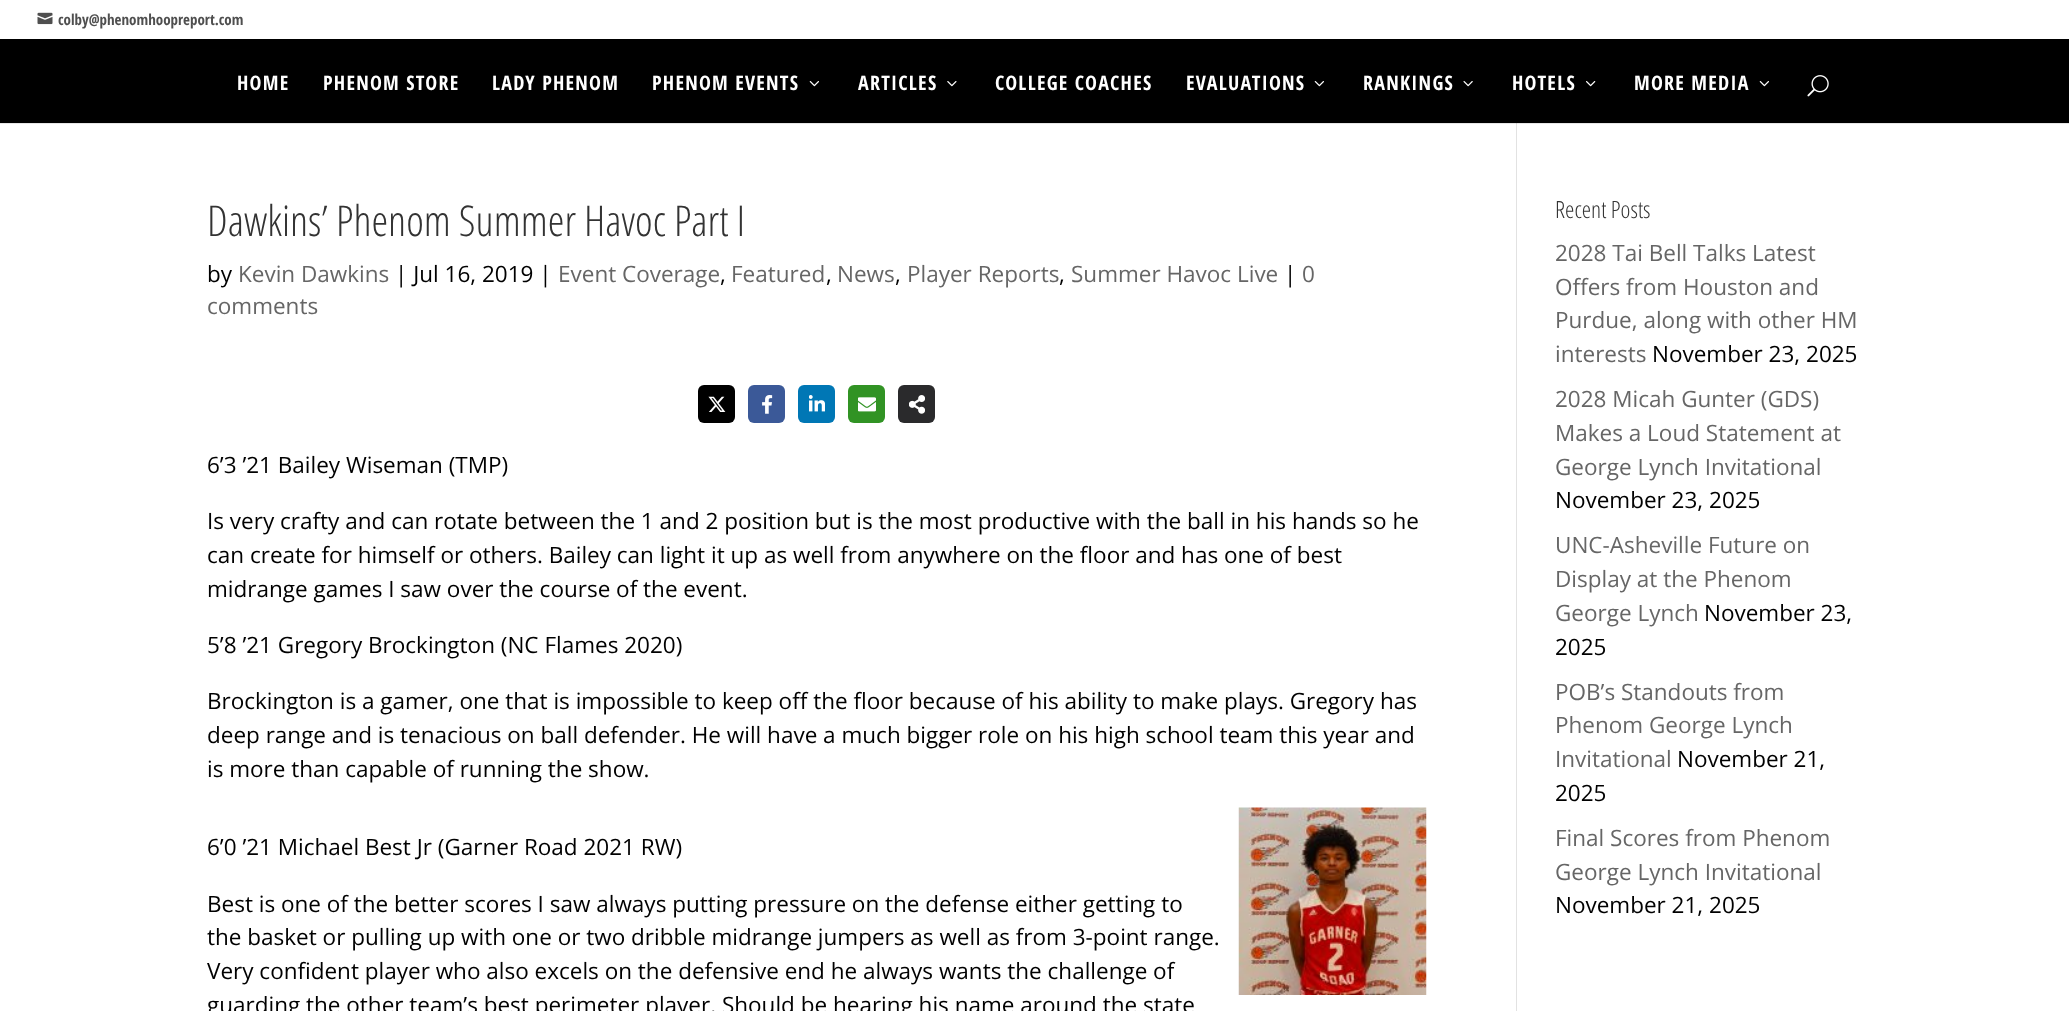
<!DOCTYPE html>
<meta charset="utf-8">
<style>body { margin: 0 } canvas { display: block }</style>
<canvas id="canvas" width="2069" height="1011"></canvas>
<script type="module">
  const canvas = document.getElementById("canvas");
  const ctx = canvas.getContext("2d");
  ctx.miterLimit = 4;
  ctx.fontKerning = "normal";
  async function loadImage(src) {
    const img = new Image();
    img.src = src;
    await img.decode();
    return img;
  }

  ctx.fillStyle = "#ffffff";
  ctx.fillRect(0, 0, 2069, 1011);
  ctx.drawImage(await loadImage("img1.png"), 37, 12, 16, 13);
  ctx.font = "bold 15px Open Sans Condensed";
  ctx.fillStyle = "#4f4f4f";
  ctx.fillText("colby@phenomhoopreport.com", 58, 25);
  ctx.fillStyle = "#000000";
  ctx.fillRect(0, 39, 2069, 84);
  ctx.letterSpacing = "1.25px";
  ctx.font = "bold 20px Open Sans Condensed";
  ctx.fillStyle = "#ffffff";
  ctx.fillText("HOME", 237, 90);
  ctx.fillText("PHENOM STORE", 323, 90);
  ctx.fillText("LADY PHENOM", 492, 90);
  ctx.fillText("PHENOM EVENTS", 652, 90);
  ctx.drawImage(await loadImage("img2.png"), 809, 81, 10, 6);
  ctx.fillText("ARTICLES", 858, 90);
  ctx.drawImage(await loadImage("img3.png"), 947, 81, 10, 6);
  ctx.fillText("COLLEGE COACHES", 995, 90);
  ctx.fillText("EVALUATIONS", 1186, 90);
  ctx.drawImage(await loadImage("img2.png"), 1314, 81, 10, 6);
  ctx.fillText("RANKINGS", 1363, 90);
  ctx.drawImage(await loadImage("img4.png"), 1463, 81, 10, 6);
  ctx.fillText("HOTELS", 1512, 90);
  ctx.drawImage(await loadImage("img5.png"), 1586, 81, 10, 6);
  ctx.fillText("MORE MEDIA", 1634, 90);
  ctx.drawImage(await loadImage("img2.png"), 1759, 81, 10, 6);
  ctx.drawImage(await loadImage("img6.png"), 1807, 75, 22, 22);
  ctx.fillStyle = "#e6e6e6";
  ctx.fillRect(0, 123, 2069, 1);
  ctx.fillStyle = "#e2e2e2";
  ctx.fillRect(1516, 123, 1, 888);
  ctx.fillStyle = "#cbcbcb";
  ctx.fillRect(1516, 123, 1, 1);
  ctx.letterSpacing = "0px";
  ctx.font = "300 42.5px Open Sans Condensed";
  ctx.fillStyle = "#333333";
  ctx.fillText("Dawkins’ Phenom Summer Havoc Part I", 207, 236);
  ctx.font = "22.5px Open Sans";
  ctx.fillStyle = "#000000";
  ctx.fillText("by", 207, 282);
  ctx.fillStyle = "#666666";
  ctx.fillText("Kevin Dawkins", 238, 282);
  ctx.fillStyle = "#000000";
  ctx.fillText("| Jul 16, 2019 |", 395, 282);
  ctx.fillStyle = "#666666";
  ctx.fillText("Event Coverage", 558, 282);
  ctx.fillStyle = "#000000";
  ctx.fillText(",", 720, 282);
  ctx.fillStyle = "#666666";
  ctx.fillText("Featured", 731, 282);
  ctx.fillStyle = "#000000";
  ctx.fillText(",", 826, 282);
  ctx.fillStyle = "#666666";
  ctx.fillText("News", 837, 282);
  ctx.fillStyle = "#000000";
  ctx.fillText(",", 895, 282);
  ctx.fillStyle = "#666666";
  ctx.fillText("Player Reports", 907, 282);
  ctx.fillStyle = "#000000";
  ctx.fillText(",", 1059, 282);
  ctx.fillStyle = "#666666";
  ctx.fillText("Summer Havoc Live", 1071, 282);
  ctx.fillStyle = "#000000";
  ctx.fillText("|", 1284, 282);
  ctx.fillStyle = "#666666";
  ctx.fillText("0", 1302, 282);
  ctx.fillText("comments", 207, 314);
  ctx.fillStyle = "#000000";
  ctx.beginPath();
  ctx.roundRect(698, 385, 37, 38, 6);
  ctx.fill();
  ctx.drawImage(await loadImage("img7.png"), 708, 396, 18, 16);
  ctx.fillStyle = "#3b5998";
  ctx.beginPath();
  ctx.roundRect(748, 385, 37, 38, 6);
  ctx.fill();
  ctx.drawImage(await loadImage("img8.png"), 762, 395, 11, 19);
  ctx.fillStyle = "#0077b5";
  ctx.beginPath();
  ctx.roundRect(798, 385, 37, 38, 6);
  ctx.fill();
  ctx.drawImage(await loadImage("img9.png"), 809, 395, 16, 17);
  ctx.fillStyle = "#319324";
  ctx.beginPath();
  ctx.roundRect(848, 385, 37, 38, 6);
  ctx.fill();
  ctx.drawImage(await loadImage("img10.png"), 858, 397, 18, 15);
  ctx.fillStyle = "#2a2a2c";
  ctx.beginPath();
  ctx.roundRect(898, 385, 37, 38, 6);
  ctx.fill();
  ctx.drawImage(await loadImage("img11.png"), 909, 395, 16, 19);
  ctx.fillStyle = "#000000";
  ctx.fillText("6’3 ’21 Bailey Wiseman (TMP)", 207, 473);
  ctx.fillText("Is very crafty and can rotate between the 1 and 2 position but is the most productive with the ball in his hands so he", 207, 529);
  ctx.fillText("can create for himself or others. Bailey can light it up as well from anywhere on the floor and has one of best", 207, 563);
  ctx.fillText("midrange games I saw over the course of the event.", 207, 597);
  ctx.fillText("5’8 ’21 Gregory Brockington (NC Flames 2020)", 207, 653);
  ctx.fillText("Brockington is a gamer, one that is impossible to keep off the floor because of his ability to make plays. Gregory has", 207, 709);
  ctx.fillText("deep range and is tenacious on ball defender. He will have a much bigger role on his high school team this year and", 207, 743);
  ctx.fillText("is more than capable of running the show.", 207, 777);
  ctx.fillText("6’0 ’21 Michael Best Jr (Garner Road 2021 RW)", 207, 855);
  ctx.drawImage(await loadImage("img12.png"), 1238, 807, 189, 188);
  ctx.fillText("Best is one of the better scores I saw always putting pressure on the defense either getting to", 207, 912);
  ctx.fillText("the basket or pulling up with one or two dribble midrange jumpers as well as from 3-point range.", 207, 945);
  ctx.fillText("Very confident player who also excels on the defensive end he always wants the challenge of", 207, 979);
  ctx.fillText("guarding the other team’s best perimeter player. Should be hearing his name around the state", 207, 1013);
  ctx.font = "300 23.75px Open Sans Condensed";
  ctx.fillStyle = "#333333";
  ctx.fillText("Recent Posts", 1555, 218);
  ctx.font = "22.5px Open Sans";
  ctx.fillStyle = "#666666";
  ctx.fillText("2028 Tai Bell Talks Latest", 1555, 261);
  ctx.fillText("Offers from Houston and", 1555, 295);
  ctx.fillText("Purdue, along with other HM", 1555, 328);
  ctx.fillText("interests", 1555, 362);
  ctx.fillStyle = "#000000";
  ctx.fillText("November 23, 2025", 1652, 362);
  ctx.fillStyle = "#666666";
  ctx.fillText("2028 Micah Gunter (GDS)", 1555, 407);
  ctx.fillText("Makes a Loud Statement at", 1555, 441);
  ctx.fillText("George Lynch Invitational", 1555, 475);
  ctx.fillStyle = "#000000";
  ctx.fillText("November 23, 2025", 1555, 508);
  ctx.fillStyle = "#666666";
  ctx.fillText("UNC-Asheville Future on", 1555, 553);
  ctx.fillText("Display at the Phenom", 1555, 587);
  ctx.fillText("George Lynch", 1555, 621);
  ctx.fillStyle = "#000000";
  ctx.fillText("November 23,", 1704, 621);
  ctx.fillText("2025", 1555, 655);
  ctx.fillStyle = "#666666";
  ctx.fillText("POB’s Standouts from", 1555, 700);
  ctx.fillText("Phenom George Lynch", 1555, 733);
  ctx.fillText("Invitational", 1555, 767);
  ctx.fillStyle = "#000000";
  ctx.fillText("November 21,", 1677, 767);
  ctx.fillText("2025", 1555, 801);
  ctx.fillStyle = "#666666";
  ctx.fillText("Final Scores from Phenom", 1555, 846);
  ctx.fillText("George Lynch Invitational", 1555, 880);
  ctx.fillStyle = "#000000";
  ctx.fillText("November 21, 2025", 1555, 913);
</script>
